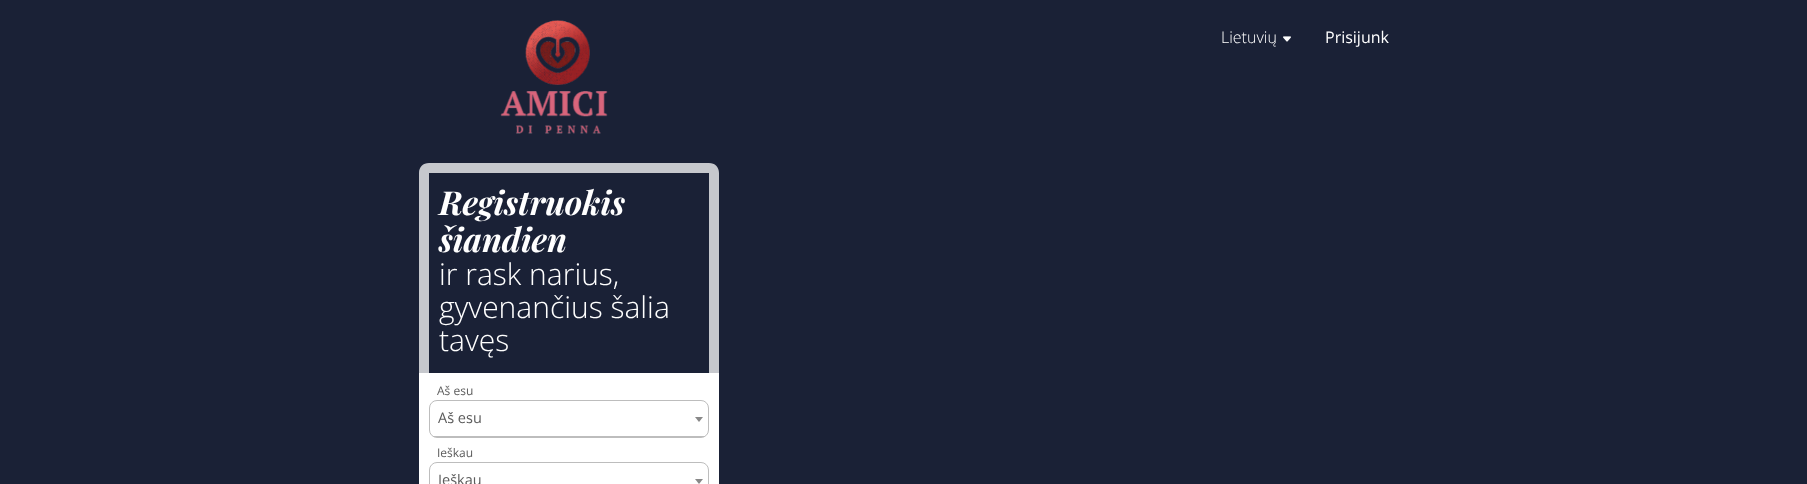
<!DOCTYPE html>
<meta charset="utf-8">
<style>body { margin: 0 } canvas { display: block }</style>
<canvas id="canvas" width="1807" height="484"></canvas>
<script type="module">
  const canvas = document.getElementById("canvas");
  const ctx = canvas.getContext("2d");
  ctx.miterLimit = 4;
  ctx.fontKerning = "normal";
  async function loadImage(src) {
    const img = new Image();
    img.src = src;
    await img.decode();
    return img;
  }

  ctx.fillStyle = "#1a2136";
  ctx.fillRect(0, 0, 1807, 484);
  ctx.drawImage(await loadImage("img1.png"), 500, 20, 108, 114);
  ctx.font = "300 16px Open Sans";
  ctx.fillStyle = "#ffffff";
  ctx.fillText("Lietuvių", 1221, 43);
  ctx.drawImage(await loadImage("img2.png"), 1283, 36, 8, 6);
  ctx.font = "16px Open Sans";
  ctx.fillText("Prisijunk", 1325, 43);
  ctx.fillStyle = "#c6c8cd";
  ctx.beginPath();
  ctx.moveTo(429, 163);
  ctx.lineTo(709, 163);
  ctx.bezierCurveTo(715, 163, 719, 167, 719, 173);
  ctx.lineTo(719, 373);
  ctx.lineTo(419, 373);
  ctx.lineTo(419, 173);
  ctx.bezierCurveTo(419, 167, 423, 163, 429, 163);
  ctx.closePath();
  ctx.moveTo(429, 173);
  ctx.lineTo(709, 173);
  ctx.lineTo(709, 373);
  ctx.lineTo(429, 373);
  ctx.closePath();
  ctx.fill("evenodd");
  ctx.font = "italic bold 33px Playfair Display";
  ctx.fillStyle = "#ffffff";
  ctx.fillText("Registruokis", 439, 215);
  ctx.fillText("šiandien", 439, 252);
  ctx.font = "300 30px Open Sans";
  ctx.fillText("ir rask narius,", 439, 285);
  ctx.fillText("gyvenančius šalia", 439, 318);
  ctx.fillText("tavęs", 439, 351);
  ctx.fillRect(419, 373, 300, 111);
  ctx.font = "12px Open Sans";
  ctx.fillStyle = "#5c5c5c";
  ctx.fillText("Aš esu", 437, 395);
  ctx.beginPath();
  ctx.roundRect(429.5, 400.5, 279, 37, 7.5);
  ctx.strokeStyle = "#bdbdbd";
  ctx.stroke();
  ctx.fillStyle = "#bdbdbd";
  ctx.fillRect(433, 436, 272, 1);
  ctx.font = "14.5px Open Sans";
  ctx.fillStyle = "#5c5c5c";
  ctx.fillText("Aš esu", 438, 423);
  ctx.fillStyle = "#888888";
  ctx.beginPath();
  ctx.moveTo(695, 417);
  ctx.lineTo(703, 417);
  ctx.lineTo(699, 422);
  ctx.closePath();
  ctx.fill();
  ctx.font = "12px Open Sans";
  ctx.fillStyle = "#5c5c5c";
  ctx.fillText("Ieškau", 437, 457);
  ctx.beginPath();
  ctx.roundRect(429.5, 462.5, 279, 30, 7.5);
  ctx.stroke();
  ctx.font = "14.5px Open Sans";
  ctx.fillText("Ieškau", 438, 485);
  ctx.fillStyle = "#888888";
  ctx.beginPath();
  ctx.moveTo(695, 479);
  ctx.lineTo(703, 479);
  ctx.lineTo(699, 484);
  ctx.closePath();
  ctx.fill();
</script>
